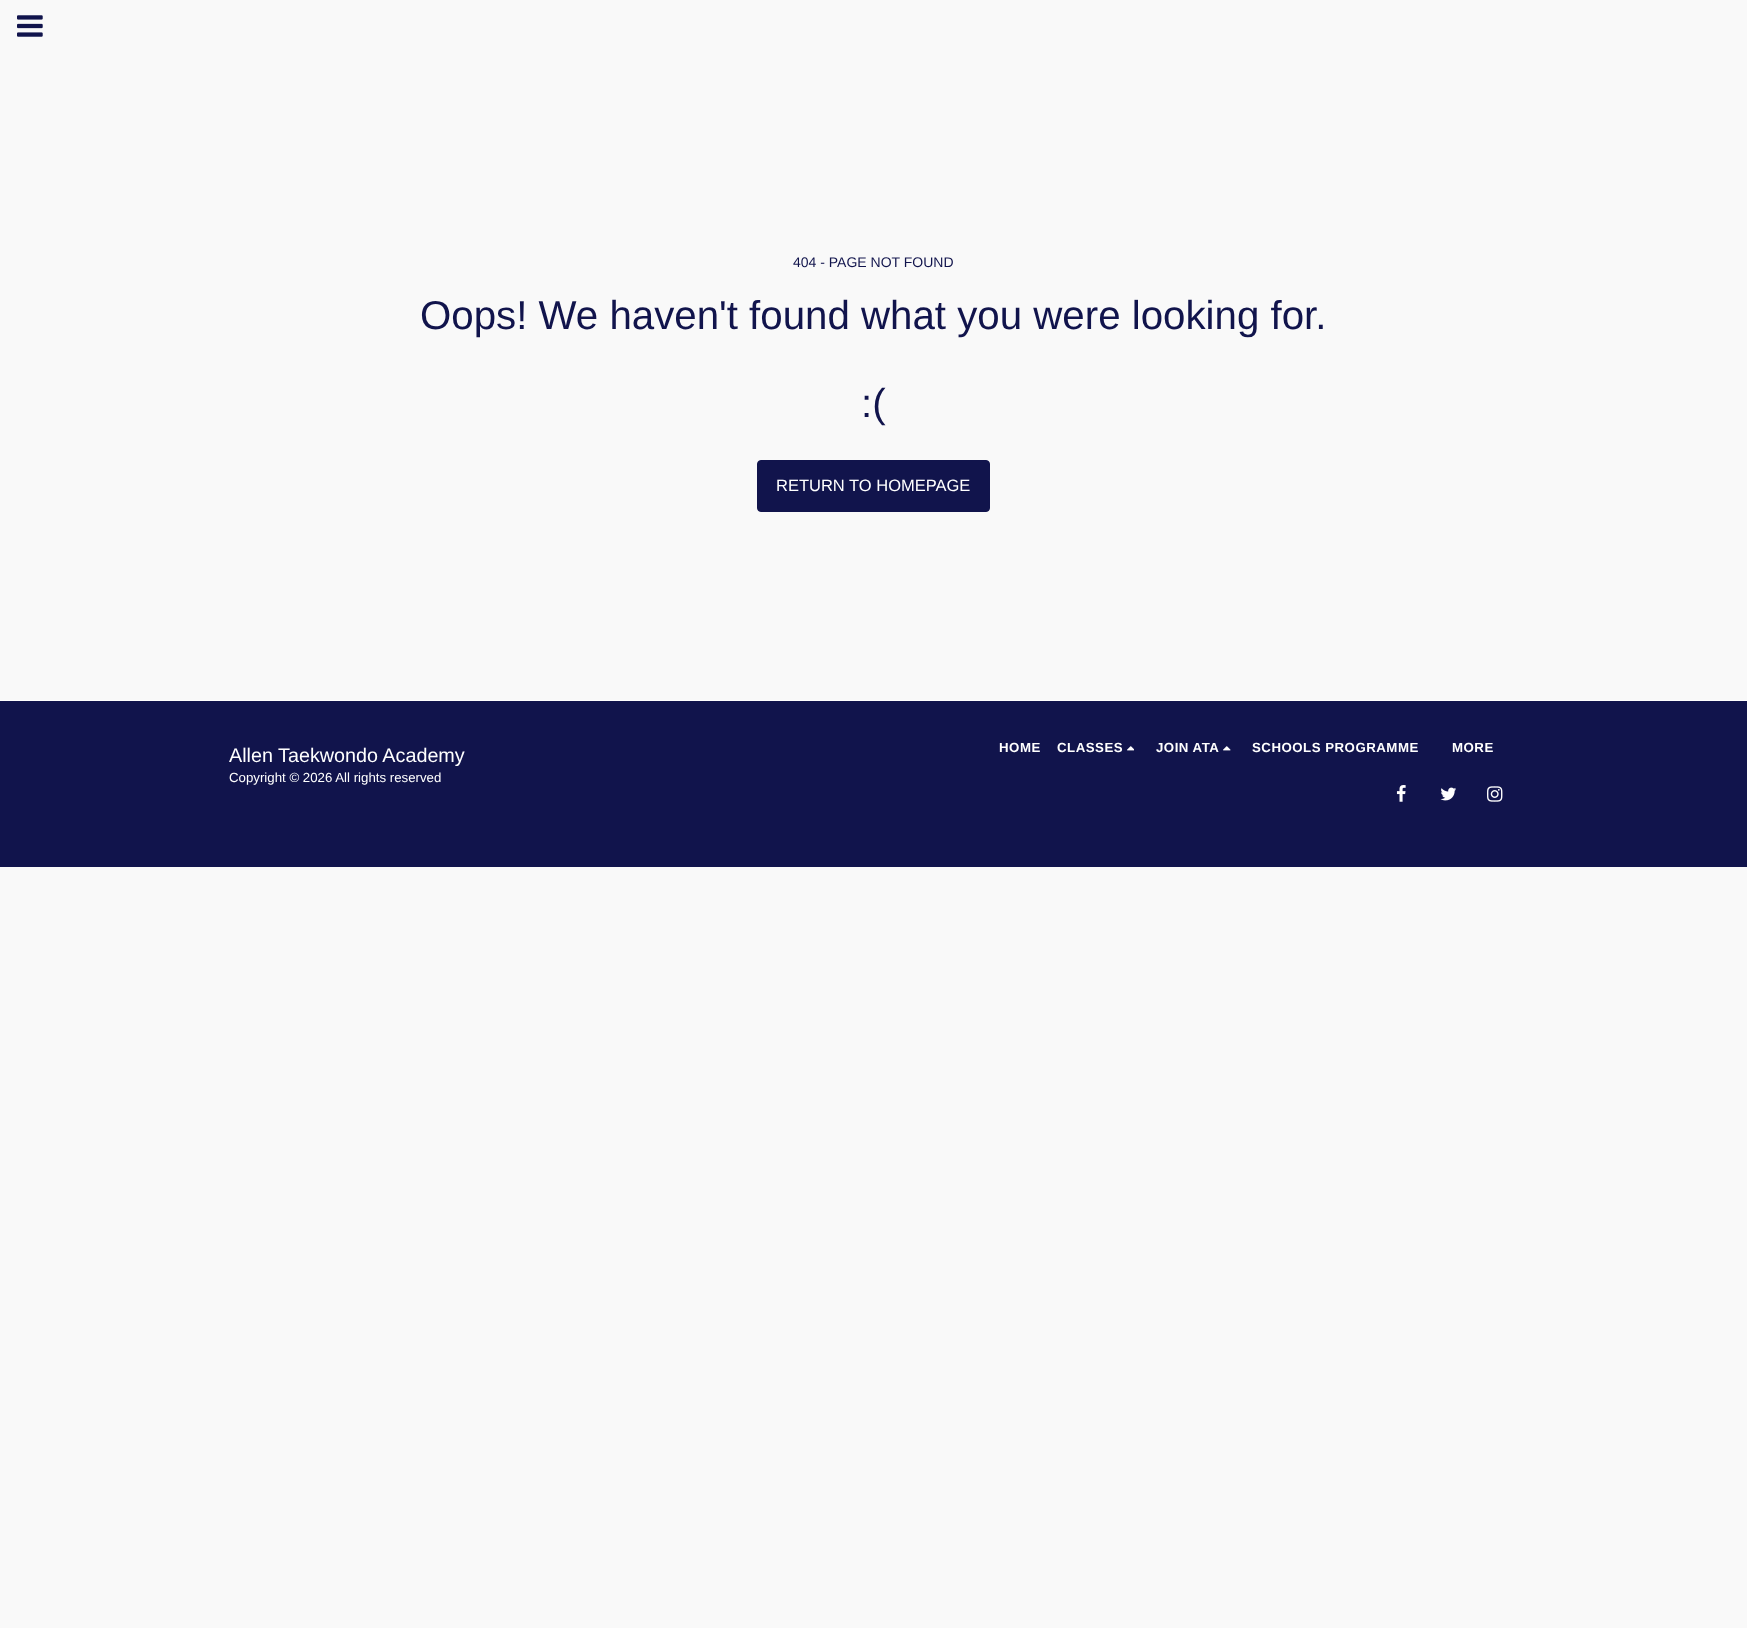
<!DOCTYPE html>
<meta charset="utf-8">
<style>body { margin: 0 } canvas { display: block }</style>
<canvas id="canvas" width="1747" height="1628"></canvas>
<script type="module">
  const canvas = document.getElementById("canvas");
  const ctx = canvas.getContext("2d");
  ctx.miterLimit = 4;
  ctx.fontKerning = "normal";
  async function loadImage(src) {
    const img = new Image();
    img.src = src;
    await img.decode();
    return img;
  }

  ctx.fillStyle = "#f9f9f9";
  ctx.fillRect(0, 0, 1747, 1628);
  ctx.drawImage(await loadImage("img1.png"), 17, 15, 26, 22);
  ctx.font = "14px Liberation Sans";
  ctx.fillStyle = "#11144c";
  ctx.fillText("404 - PAGE NOT FOUND", 793, 267);
  ctx.font = "40.25px Liberation Sans";
  ctx.fillText("Oops! We haven't found what you were looking for.", 420, 329);
  ctx.fillText(":(", 861, 417);
  ctx.beginPath();
  ctx.roundRect(757.5, 460.5, 232, 51, 3.5);
  ctx.fill();
  ctx.strokeStyle = "#11144c";
  ctx.stroke();
  ctx.font = "16.5px Liberation Sans";
  ctx.fillStyle = "#ffffff";
  ctx.fillText("RETURN TO HOMEPAGE", 776, 491);
  ctx.fillStyle = "#11144c";
  ctx.fillRect(0, 701, 1747, 166);
  ctx.fillStyle = "#ffffff";
  ctx.fillRect(0, 700, 1747, 1);
  ctx.font = "19.75px Liberation Sans";
  ctx.fillText("Allen Taekwondo Academy", 229, 762);
  ctx.font = "13.25px Liberation Sans";
  ctx.fillText("Copyright © 2026 All rights reserved", 229, 782);
  ctx.letterSpacing = "0.5px";
  ctx.font = "bold 13.25px Liberation Sans";
  ctx.fillText("HOME", 999, 752);
  ctx.fillText("CLASSES", 1057, 752);
  ctx.drawImage(await loadImage("img2.png"), 1127, 746, 7, 5);
  ctx.fillText("JOIN ATA", 1156, 752);
  ctx.drawImage(await loadImage("img3.png"), 1223, 746, 8, 5);
  ctx.fillText("SCHOOLS PROGRAMME", 1252, 752);
  ctx.fillText("MORE", 1452, 752);
  ctx.drawImage(await loadImage("img4.png"), 1396, 785, 10, 17);
  ctx.drawImage(await loadImage("img5.png"), 1440, 787, 16, 14);
  ctx.drawImage(await loadImage("img6.png"), 1487, 786, 16, 16);
</script>
